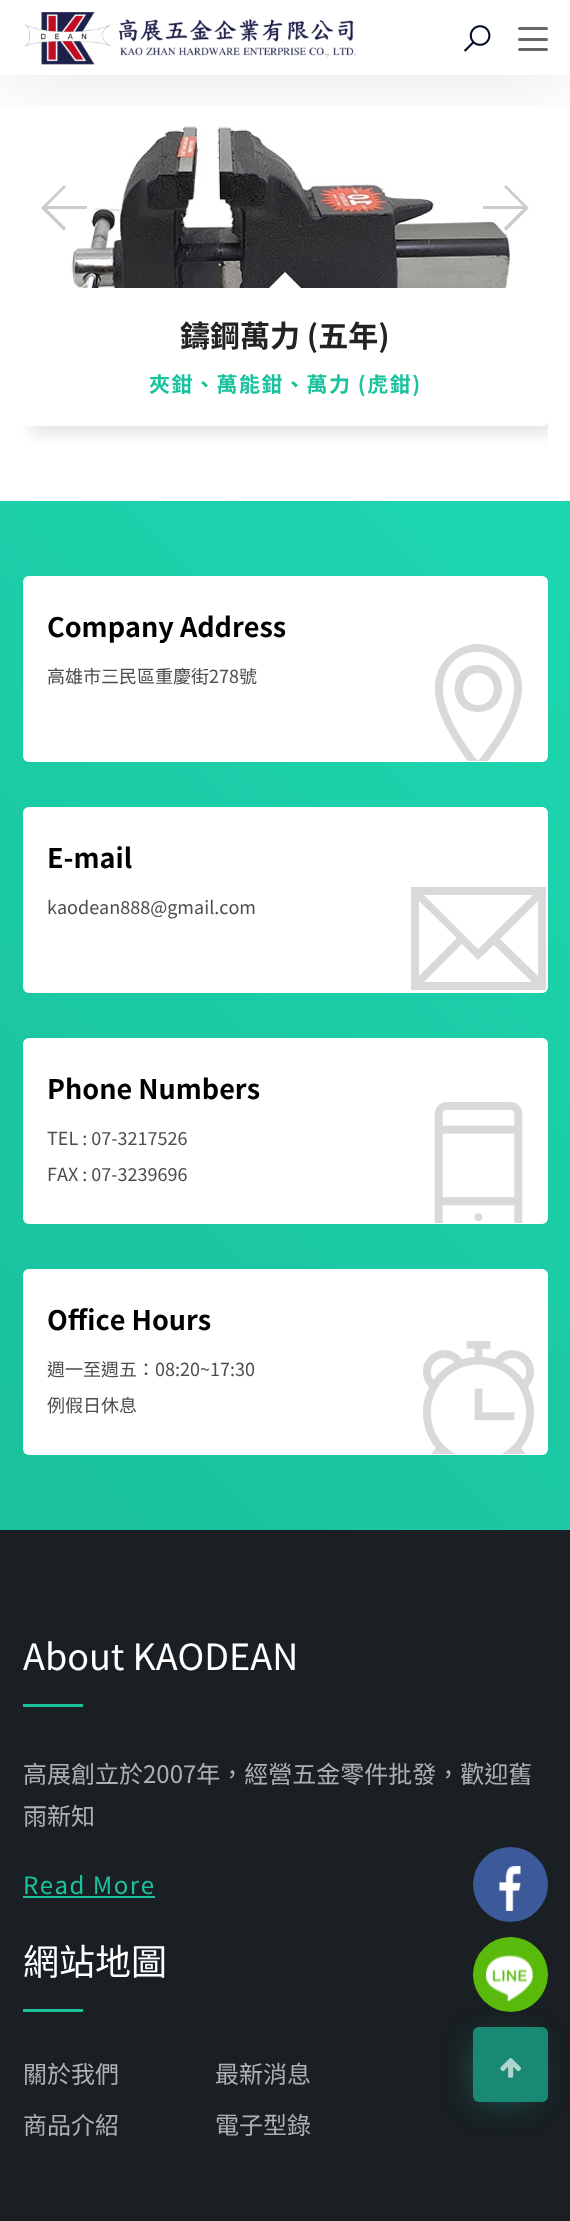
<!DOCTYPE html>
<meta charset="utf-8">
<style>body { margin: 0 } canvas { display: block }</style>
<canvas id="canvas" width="570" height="2221"></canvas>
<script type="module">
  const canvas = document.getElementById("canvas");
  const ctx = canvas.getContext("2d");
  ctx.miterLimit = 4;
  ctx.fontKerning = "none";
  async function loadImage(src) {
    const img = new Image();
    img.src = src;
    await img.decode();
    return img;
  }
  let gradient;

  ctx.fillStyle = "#ffffff";
  ctx.fillRect(0, 0, 570, 2221);
  ctx.save();
  ctx.beginPath();
  ctx.rect(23, 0, 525, 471);
  ctx.clip();
  ctx.fillStyle = "rgba(0, 0, 0, 0.1)";
  ctx.filter = "blur(7.5px)";
  ctx.beginPath();
  ctx.roundRect(30, -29, 525, 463, 6);
  ctx.fill();
  ctx.filter = "none";
  ctx.restore();
  ctx.beginPath();
  ctx.roundRect(23, -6, 525, 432, 6);
  ctx.fill();
  ctx.drawImage(await loadImage("img3.png"), 59, 126, 451, 162);
  ctx.fillStyle = "#cccccc";
  ctx.beginPath();
  ctx.moveTo(87, 209);
  ctx.lineTo(47, 209);
  ctx.lineTo(66, 228);
  ctx.lineTo(64, 231);
  ctx.lineTo(41, 208);
  ctx.lineTo(64, 185);
  ctx.lineTo(66, 187);
  ctx.lineTo(47, 206);
  ctx.lineTo(87, 206);
  ctx.closePath();
  ctx.fill();
  ctx.beginPath();
  ctx.moveTo(529, 208);
  ctx.lineTo(506, 231);
  ctx.lineTo(504, 228);
  ctx.lineTo(523, 209);
  ctx.lineTo(483, 209);
  ctx.lineTo(483, 206);
  ctx.lineTo(523, 206);
  ctx.lineTo(504, 187);
  ctx.lineTo(506, 185);
  ctx.closePath();
  ctx.fill();
  ctx.save();
  ctx.beginPath();
  ctx.rect(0, 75, 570, 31);
  ctx.clip();
  ctx.fillStyle = "rgba(0, 0, 0, 0.1)";
  ctx.filter = "blur(37.5px)";
  ctx.beginPath();
  ctx.rect(0, 0, 570, 75);
  ctx.fill();
  ctx.filter = "none";
  ctx.restore();
  ctx.drawImage(await loadImage("img1.png"), 24, 12, 332, 53);
  ctx.drawImage(await loadImage("img2.png"), 463, 25, 28, 27);
  ctx.fillStyle = "#666666";
  ctx.beginPath();
  ctx.roundRect(518, 27, 30, 3, 1.5);
  ctx.fill();
  ctx.beginPath();
  ctx.roundRect(518, 38, 30, 3, 1.5);
  ctx.fill();
  ctx.beginPath();
  ctx.roundRect(518, 48, 30, 3, 1.5);
  ctx.fill();
  ctx.fillStyle = "#ffffff";
  ctx.beginPath();
  ctx.roundRect(23, 288, 525, 138, [0, 0, 6, 6]);
  ctx.fill();
  ctx.beginPath();
  ctx.moveTo(285, 272);
  ctx.lineTo(301, 288);
  ctx.lineTo(285, 304);
  ctx.lineTo(269, 288);
  ctx.closePath();
  ctx.fill();
  ctx.font = "bold 30px Noto Sans TC";
  ctx.fillStyle = "#232323";
  ctx.fillText("鑄鋼萬力 (五年)", 180, 347);
  ctx.letterSpacing = "1.5px";
  ctx.font = "bold 21px Noto Sans TC";
  ctx.fillStyle = "#1ac29e";
  ctx.fillText("夾鉗、萬能鉗、萬力 (虎鉗)", 149, 392);
  gradient = ctx.createLinearGradient(-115, 1415, 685, 616);
  gradient.addColorStop(0.08, "#1ac29e");
  gradient.addColorStop(1, "#1dd7b0");
  ctx.fillStyle = gradient;
  ctx.fillRect(0, 501, 570, 1029);
  ctx.fillStyle = "#ffffff";
  ctx.beginPath();
  ctx.roundRect(23, 576, 525, 186, 6);
  ctx.fill();
  ctx.beginPath();
  ctx.roundRect(24, 577, 523, 184, 5);
  ctx.strokeStyle = "rgba(255, 255, 255, 0.15)";
  ctx.lineWidth = 2;
  ctx.stroke();
  ctx.letterSpacing = "0px";
  ctx.font = "bold 27px Noto Sans TC";
  ctx.fillStyle = "#000000";
  ctx.fillText("Company Address", 47, 637);
  ctx.fillStyle = "#d9d9d9";
  ctx.beginPath();
  ctx.moveTo(478, 644);
  ctx.bezierCurveTo(467, 644, 456, 649, 448, 657);
  ctx.bezierCurveTo(418, 686, 446, 731, 468, 761);
  ctx.lineTo(488, 761);
  ctx.bezierCurveTo(511, 731, 539, 686, 509, 657);
  ctx.bezierCurveTo(501, 649, 490, 644, 478, 644);
  ctx.closePath();
  ctx.moveTo(478, 761);
  ctx.bezierCurveTo(494, 741, 514, 713, 514, 688);
  ctx.bezierCurveTo(515, 656, 475, 640, 453, 662);
  ctx.bezierCurveTo(426, 690, 460, 738, 478, 761);
  ctx.closePath();
  ctx.moveTo(478, 665);
  ctx.bezierCurveTo(510, 665, 510, 712, 478, 712);
  ctx.bezierCurveTo(447, 712, 447, 665, 478, 665);
  ctx.closePath();
  ctx.moveTo(478, 705);
  ctx.bezierCurveTo(499, 705, 499, 673, 478, 673);
  ctx.bezierCurveTo(458, 673, 458, 705, 478, 705);
  ctx.closePath();
  ctx.fill("evenodd");
  ctx.font = "18px Noto Sans TC";
  ctx.fillStyle = "#4d4d4d";
  ctx.fillText("高雄市三民區重慶街278號", 47, 683);
  ctx.fillStyle = "#ffffff";
  ctx.beginPath();
  ctx.roundRect(23, 807, 525, 186, 6);
  ctx.fill();
  ctx.beginPath();
  ctx.roundRect(24, 808, 523, 184, 5);
  ctx.stroke();
  ctx.font = "bold 27px Noto Sans TC";
  ctx.fillStyle = "#000000";
  ctx.fillText("E-mail", 47, 868);
  ctx.fillStyle = "#d9d9d9";
  ctx.beginPath();
  ctx.moveTo(411, 887);
  ctx.lineTo(411, 990);
  ctx.lineTo(545, 990);
  ctx.bezierCurveTo(546, 989, 546, 988, 546, 987);
  ctx.lineTo(546, 887);
  ctx.closePath();
  ctx.moveTo(478, 949);
  ctx.lineTo(533, 895);
  ctx.lineTo(424, 895);
  ctx.closePath();
  ctx.moveTo(457, 938);
  ctx.lineTo(419, 901);
  ctx.lineTo(419, 976);
  ctx.closePath();
  ctx.moveTo(500, 939);
  ctx.lineTo(538, 976);
  ctx.lineTo(538, 901);
  ctx.closePath();
  ctx.moveTo(462, 944);
  ctx.lineTo(424, 982);
  ctx.lineTo(532, 982);
  ctx.lineTo(494, 945);
  ctx.lineTo(478, 960);
  ctx.closePath();
  ctx.fill("evenodd");
  ctx.font = "18px Noto Sans TC";
  ctx.fillStyle = "#4d4d4d";
  ctx.fillText("kaodean888@gmail.com", 47, 914);
  ctx.fillStyle = "#ffffff";
  ctx.beginPath();
  ctx.roundRect(23, 1038, 525, 186, 6);
  ctx.fill();
  ctx.beginPath();
  ctx.roundRect(24, 1039, 523, 184, 5);
  ctx.stroke();
  ctx.font = "bold 27px Noto Sans TC";
  ctx.fillStyle = "#000000";
  ctx.fillText("Phone Numbers", 47, 1099);
  ctx.drawImage(await loadImage("img4.png"), 434, 1102, 89, 121);
  ctx.font = "18px Noto Sans TC";
  ctx.fillStyle = "#4d4d4d";
  ctx.fillText("TEL : 07-3217526", 47, 1145);
  ctx.fillText("FAX : 07-3239696", 47, 1181);
  ctx.fillStyle = "#ffffff";
  ctx.beginPath();
  ctx.roundRect(23, 1269, 525, 186, 6);
  ctx.fill();
  ctx.beginPath();
  ctx.roundRect(24, 1270, 523, 184, 5);
  ctx.stroke();
  ctx.font = "bold 27px Noto Sans TC";
  ctx.fillStyle = "#000000";
  ctx.fillText("Office Hours", 47, 1330);
  ctx.drawImage(await loadImage("img5.png"), 423, 1341, 111, 113);
  ctx.font = "18px Noto Sans TC";
  ctx.fillStyle = "#4d4d4d";
  ctx.fillText("週一至週五：08:20~17:30", 47, 1376);
  ctx.fillText("例假日休息", 47, 1412);
  ctx.fillStyle = "#191f23";
  ctx.fillRect(0, 1530, 570, 691);
  ctx.font = "36px Noto Sans TC";
  ctx.fillStyle = "#ffffff";
  ctx.fillText("About KAODEAN", 23, 1670);
  ctx.fillStyle = "#1ac29e";
  ctx.fillRect(23, 1704, 60, 3);
  ctx.font = "24px Noto Sans TC";
  ctx.fillStyle = "#b0b0b0";
  ctx.fillText("高展創立於2007年，經營五金零件批發，歡迎舊", 23, 1783);
  ctx.fillText("雨新知", 23, 1825);
  ctx.letterSpacing = "1.5px";
  ctx.fillStyle = "#1ac29e";
  ctx.fillText("Read More", 23, 1894);
  ctx.fillRect(23, 1896, 132, 2);
  ctx.letterSpacing = "0px";
  ctx.font = "36px Noto Sans TC";
  ctx.fillStyle = "#ffffff";
  ctx.fillText("網站地圖", 23, 1975);
  ctx.fillStyle = "#1ac29e";
  ctx.fillRect(23, 2009, 60, 3);
  ctx.font = "24px Noto Sans TC";
  ctx.fillStyle = "#b0b0b0";
  ctx.fillText("關於我們", 23, 2083);
  ctx.fillText("最新消息", 215, 2083);
  ctx.fillText("商品介紹", 23, 2134);
  ctx.fillText("電子型錄", 215, 2134);
  ctx.fillStyle = "#3c5a99";
  ctx.beginPath();
  ctx.arc(510.5, 1884.5, 37.5, 0, Math.PI * 2);
  ctx.fill();
  ctx.drawImage(await loadImage("img6.png"), 499, 1866, 22, 45);
  ctx.fillStyle = "#1a8973";
  ctx.filter = "blur(18px)";
  ctx.beginPath();
  ctx.rect(482, 2048, 45, 45);
  ctx.fill();
  ctx.filter = "none";
  ctx.fillStyle = "#5aba0c";
  ctx.beginPath();
  ctx.arc(510.5, 1974.5, 37.5, 0, Math.PI * 2);
  ctx.fill();
  ctx.drawImage(await loadImage("img7.png"), 486, 1955, 48, 46);
  ctx.fillStyle = "#1a8973";
  ctx.beginPath();
  ctx.roundRect(473, 2027, 75, 75, 6);
  ctx.fill();
  ctx.drawImage(await loadImage("img8.png"), 500, 2058, 21, 20);
</script>
